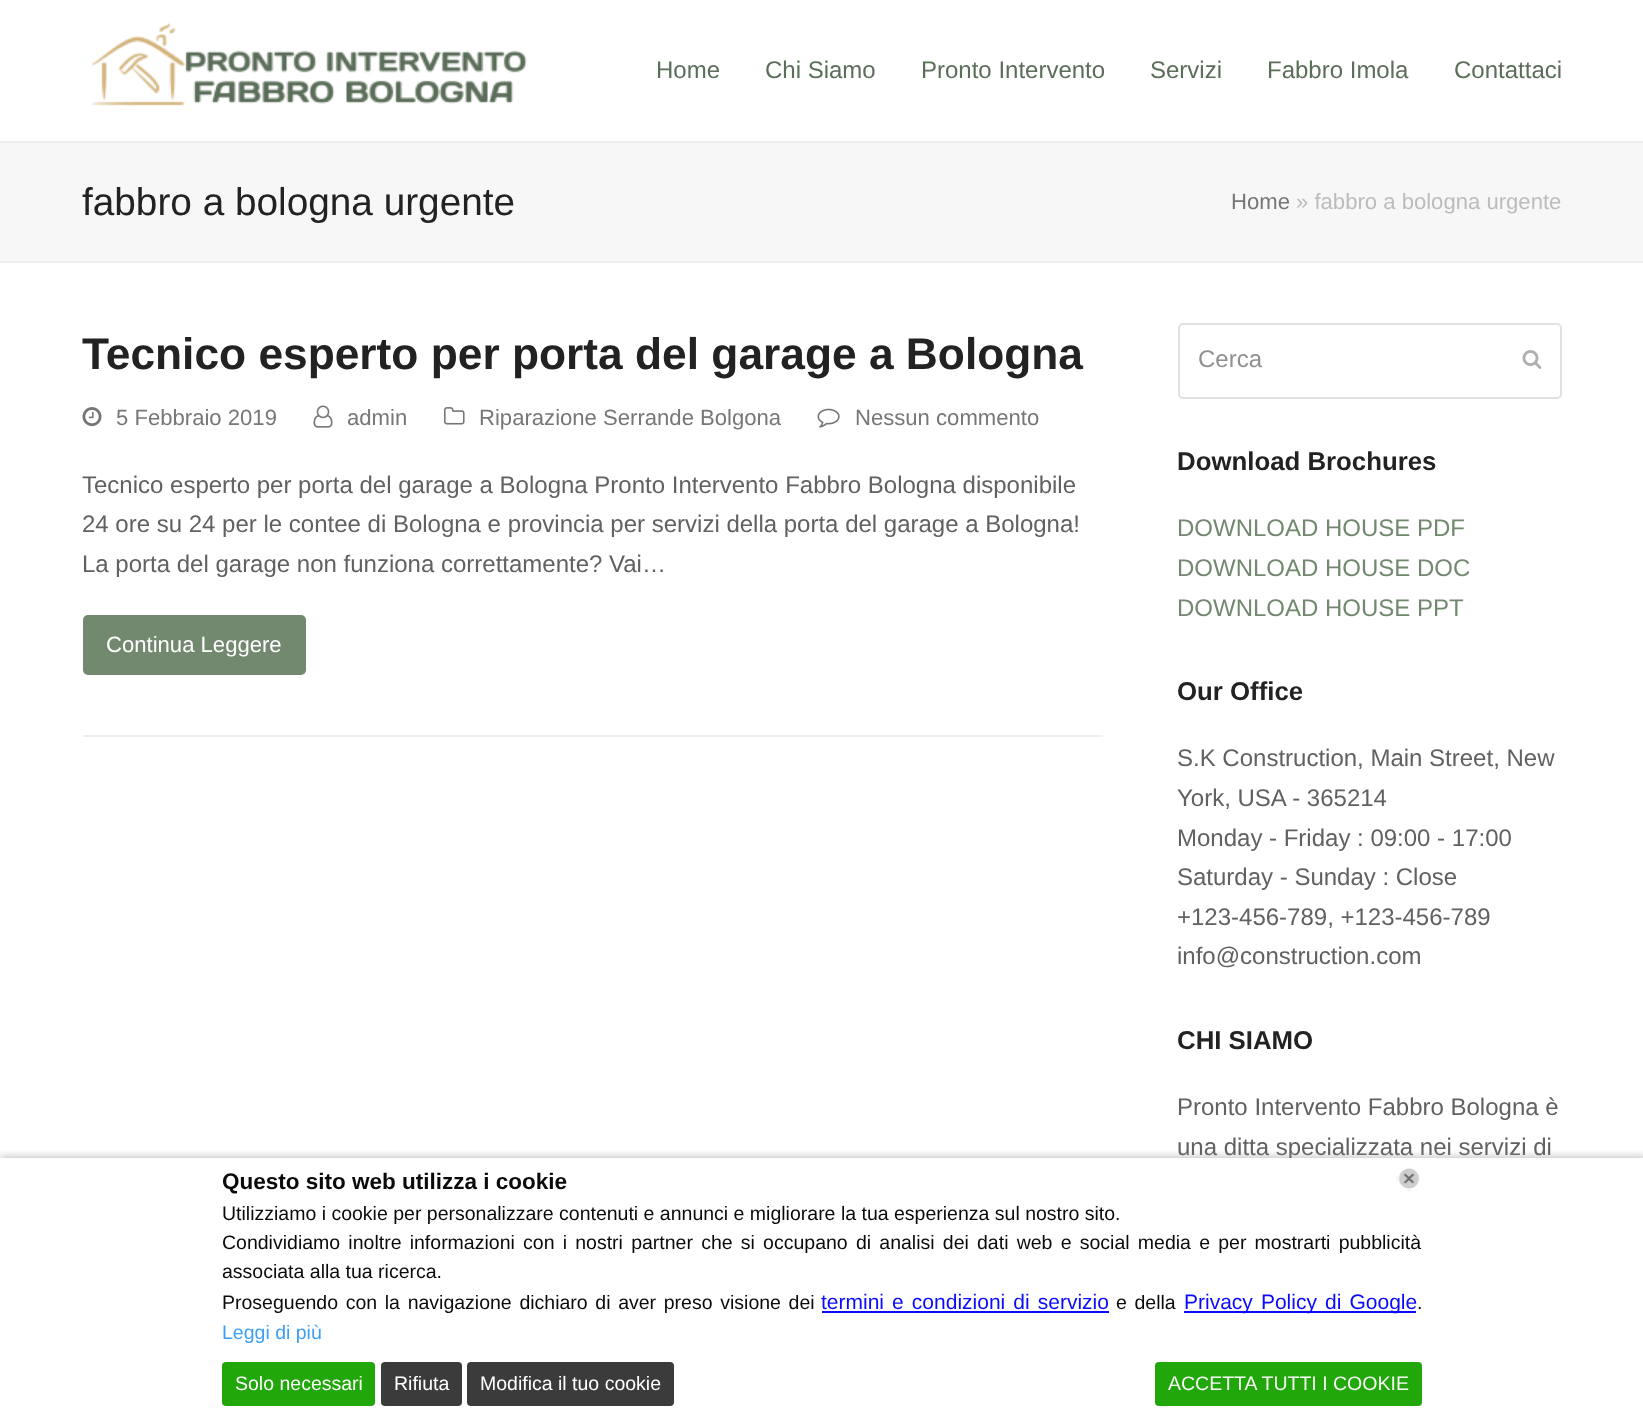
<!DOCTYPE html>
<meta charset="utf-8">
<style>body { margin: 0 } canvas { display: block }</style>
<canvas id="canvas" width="1643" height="1412"></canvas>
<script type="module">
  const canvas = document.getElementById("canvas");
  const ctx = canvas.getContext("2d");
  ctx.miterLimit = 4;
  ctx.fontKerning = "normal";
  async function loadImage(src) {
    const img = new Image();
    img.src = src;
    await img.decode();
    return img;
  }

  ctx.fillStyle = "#ffffff";
  ctx.fillRect(0, 0, 1643, 1412);
  ctx.drawImage(await loadImage("img1.png"), 91, 22, 436, 84);
  ctx.font = "24px Liberation Sans";
  ctx.fillStyle = "#5b6e59";
  ctx.fillText("Home", 656, 78);
  ctx.fillText("Chi Siamo", 765, 78);
  ctx.fillText("Pronto Intervento", 921, 78);
  ctx.fillText("Servizi", 1150, 78);
  ctx.fillText("Fabbro Imola", 1267, 78);
  ctx.fillText("Contattaci", 1454, 78);
  ctx.fillStyle = "#f7f7f7";
  ctx.fillRect(0, 143, 1643, 118);
  ctx.fillStyle = "#eeeeee";
  ctx.fillRect(0, 141, 1643, 2);
  ctx.fillRect(0, 261, 1643, 2);
  ctx.font = "38.75px Liberation Sans";
  ctx.fillStyle = "#222222";
  ctx.fillText("fabbro a bologna urgente", 82, 215);
  ctx.font = "22.1px Liberation Sans";
  ctx.fillStyle = "#777777";
  ctx.fillText("Home", 1231, 209);
  ctx.fillStyle = "#bcbcbc";
  ctx.fillText("» fabbro a bologna urgente", 1296, 209);
  ctx.font = "bold 44.3px Liberation Sans";
  ctx.fillStyle = "#222222";
  ctx.fillText("Tecnico esperto per porta del garage a Bologna", 82, 369);
  ctx.drawImage(await loadImage("img2.png"), 82, 407, 20, 20);
  ctx.font = "22.1px Liberation Sans";
  ctx.fillStyle = "#777777";
  ctx.fillText("5 Febbraio 2019", 116, 425);
  ctx.drawImage(await loadImage("img3.png"), 313, 405, 20, 23);
  ctx.fillText("admin", 347, 425);
  ctx.drawImage(await loadImage("img4.png"), 444, 407, 21, 18);
  ctx.fillText("Riparazione Serrande Bolgona", 479, 425);
  ctx.drawImage(await loadImage("img5.png"), 817, 408, 23, 20);
  ctx.fillText("Nessun commento", 855, 425);
  ctx.font = "24px Liberation Sans";
  ctx.fillStyle = "#616161";
  ctx.fillText("Tecnico esperto per porta del garage a Bologna Pronto Intervento Fabbro Bologna disponibile", 82, 493);
  ctx.fillText("24 ore su 24 per le contee di Bologna e provincia per servizi della porta del garage a Bologna!", 82, 532);
  ctx.fillText("La porta del garage non funziona correttamente? Vai…", 82, 572);
  ctx.fillStyle = "#72896f";
  ctx.beginPath();
  ctx.roundRect(83, 615, 223, 60, 5);
  ctx.fill();
  ctx.font = "22.1px Liberation Sans";
  ctx.fillStyle = "#ffffff";
  ctx.fillText("Continua Leggere", 106, 652);
  ctx.fillStyle = "#eeeeee";
  ctx.fillRect(83, 735, 1020, 2);
  ctx.beginPath();
  ctx.roundRect(1179, 324, 382, 74, 4);
  ctx.strokeStyle = "#e1e1e1";
  ctx.lineWidth = 2;
  ctx.stroke();
  ctx.font = "24px Liberation Sans";
  ctx.fillStyle = "#909090";
  ctx.fillText("Cerca", 1198, 367);
  ctx.drawImage(await loadImage("img6.png"), 1522, 350, 20, 19);
  ctx.font = "bold 25.8px Liberation Sans";
  ctx.fillStyle = "#222222";
  ctx.fillText("Download Brochures", 1177, 470);
  ctx.font = "24px Liberation Sans";
  ctx.fillStyle = "#72896f";
  ctx.fillText("DOWNLOAD HOUSE PDF", 1177, 536);
  ctx.fillText("DOWNLOAD HOUSE DOC", 1177, 576);
  ctx.fillText("DOWNLOAD HOUSE PPT", 1177, 616);
  ctx.font = "bold 25.8px Liberation Sans";
  ctx.fillStyle = "#222222";
  ctx.fillText("Our Office", 1177, 700);
  ctx.font = "24px Liberation Sans";
  ctx.fillStyle = "#616161";
  ctx.fillText("S.K Construction, Main Street, New", 1177, 766);
  ctx.fillText("York, USA - 365214", 1177, 806);
  ctx.fillText("Monday - Friday : 09:00 - 17:00", 1177, 846);
  ctx.fillText("Saturday - Sunday : Close", 1177, 885);
  ctx.fillText("+123-456-789, +123-456-789", 1177, 925);
  ctx.fillText("info@construction.com", 1177, 964);
  ctx.font = "bold 25.8px Liberation Sans";
  ctx.fillStyle = "#222222";
  ctx.fillText("CHI SIAMO", 1177, 1049);
  ctx.font = "24px Liberation Sans";
  ctx.fillStyle = "#616161";
  ctx.fillText("Pronto Intervento Fabbro Bologna è", 1177, 1115);
  ctx.fillText("una ditta specializzata nei servizi di", 1177, 1155);
  ctx.save();
  ctx.beginPath();
  ctx.rect(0, 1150, 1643, 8);
  ctx.clip();
  ctx.fillStyle = "rgba(142, 142, 142, 0.58)";
  ctx.filter = "blur(4px)";
  ctx.beginPath();
  ctx.rect(0, 1157, 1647, 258);
  ctx.fill();
  ctx.filter = "none";
  ctx.restore();
  ctx.fillStyle = "rgba(255, 255, 255, 0.96)";
  ctx.fillRect(1289, 1158, 3, 2);
  ctx.drawImage(await loadImage("img7.png"), 1396, 1165, 24, 26);
  ctx.font = "bold 22.5px Liberation Sans";
  ctx.fillStyle = "#0a0a0a";
  ctx.fillText("Questo sito web utilizza i cookie", 222, 1189);
  ctx.font = "19.5px Liberation Sans";
  ctx.fillText("Utilizziamo i cookie per personalizzare contenuti e annunci e migliorare la tua esperienza sul nostro sito.", 222, 1220);
  ctx.wordSpacing = "2.8px";
  ctx.fillText("Condividiamo inoltre informazioni con i nostri partner che si occupano di analisi dei dati web e social media e per mostrarti pubblicità", 222, 1249);
  ctx.wordSpacing = "0px";
  ctx.fillText("associata alla tua ricerca.", 222, 1278);
  ctx.wordSpacing = "2.25px";
  ctx.fillText("Proseguendo con la navigazione dichiaro di aver preso visione dei", 222, 1309);
  ctx.font = "21px Liberation Sans";
  ctx.fillStyle = "#0a0aff";
  ctx.fillText("termini e condizioni di servizio", 821, 1309);
  ctx.fillRect(822, 1311, 287, 2);
  ctx.font = "19.5px Liberation Sans";
  ctx.fillStyle = "#0a0a0a";
  ctx.fillText("e della", 1116, 1309);
  ctx.fillStyle = "rgba(0, 0, 255, 0.96)";
  ctx.fillRect(1184, 1311, 232, 2);
  ctx.font = "21px Liberation Sans";
  ctx.fillStyle = "#0a0aff";
  ctx.fillText("Privacy Policy di Google", 1184, 1309);
  ctx.wordSpacing = "0px";
  ctx.font = "19.5px Liberation Sans";
  ctx.fillStyle = "#0a0a0a";
  ctx.fillText(".", 1417, 1309);
  ctx.fillStyle = "#3d9ff5";
  ctx.fillText("Leggi di più", 222, 1339);
  ctx.fillStyle = "#21a70a";
  ctx.beginPath();
  ctx.roundRect(222, 1362, 153, 44, 4);
  ctx.fill();
  ctx.fillStyle = "#ffffff";
  ctx.fillText("Solo necessari", 235, 1390);
  ctx.fillStyle = "#3b3b3b";
  ctx.beginPath();
  ctx.roundRect(381, 1362, 81, 44, 4);
  ctx.fill();
  ctx.fillStyle = "#ffffff";
  ctx.fillText("Rifiuta", 394, 1390);
  ctx.fillStyle = "#3b3b3b";
  ctx.beginPath();
  ctx.roundRect(467, 1362, 207, 44, 4);
  ctx.fill();
  ctx.fillStyle = "#ffffff";
  ctx.fillText("Modifica il tuo cookie", 480, 1390);
  ctx.fillStyle = "rgba(24, 163, 0, 0.96)";
  ctx.beginPath();
  ctx.roundRect(1155, 1362, 267, 44, 4);
  ctx.fill();
  ctx.fillStyle = "#f6fbf5";
  ctx.fillText("ACCETTA TUTTI I COOKIE", 1168, 1390);
</script>
